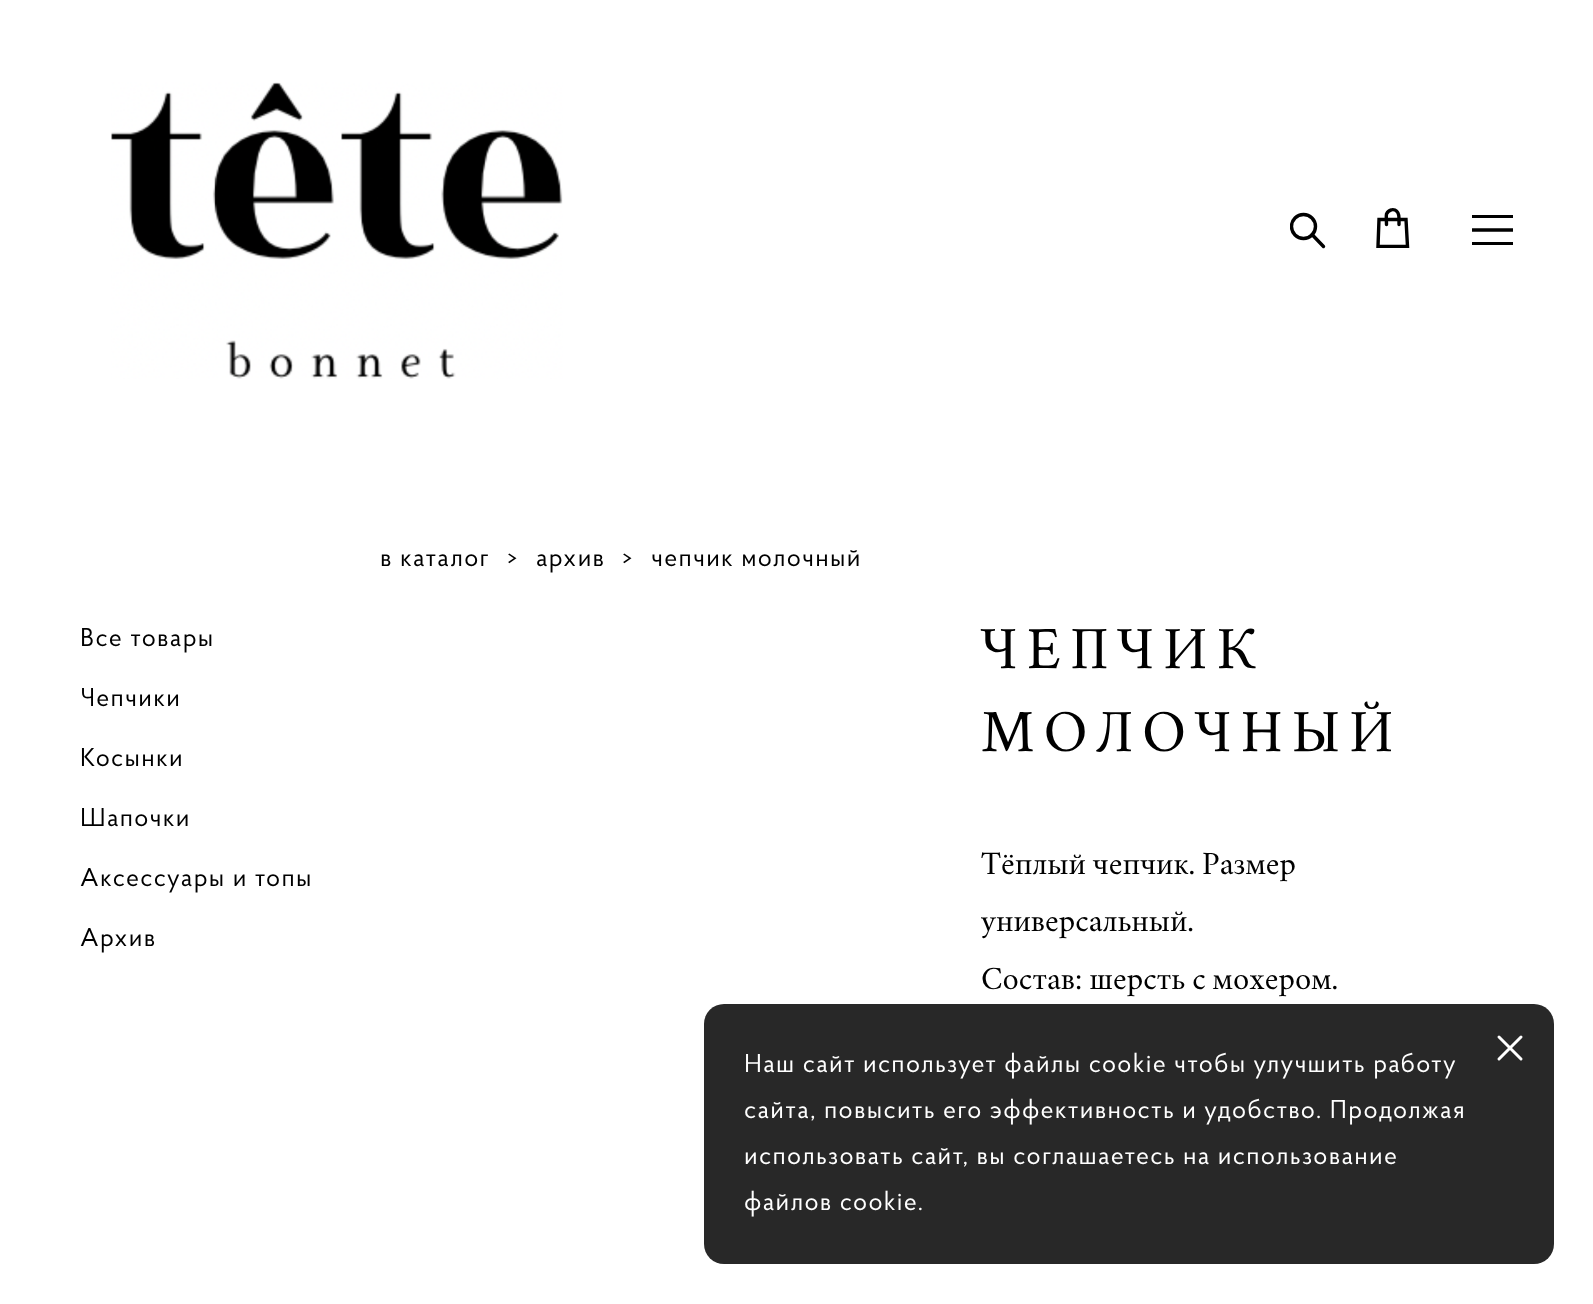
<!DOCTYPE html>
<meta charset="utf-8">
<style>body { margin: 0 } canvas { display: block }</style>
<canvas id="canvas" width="1593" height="1304"></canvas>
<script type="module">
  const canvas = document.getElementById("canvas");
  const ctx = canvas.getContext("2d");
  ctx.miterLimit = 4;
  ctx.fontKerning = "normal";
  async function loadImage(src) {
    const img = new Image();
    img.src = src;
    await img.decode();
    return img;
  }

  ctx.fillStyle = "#ffffff";
  ctx.fillRect(0, 0, 1593, 1304);
  ctx.drawImage(await loadImage("img1.png"), 111, 82, 452, 297);
  ctx.save();
  ctx.beginPath();
  ctx.rect(1290, 208, 36, 40);
  ctx.clip();
  ctx.beginPath();
  ctx.arc(1303.5, 226.5, 12, 0, Math.PI * 2);
  ctx.strokeStyle = "#000000";
  ctx.lineWidth = 3.4;
  ctx.stroke();
  ctx.restore();
  ctx.beginPath();
  ctx.moveTo(1312, 234.5);
  ctx.lineTo(1323.5, 246.5);
  ctx.strokeStyle = "#000000";
  ctx.lineWidth = 3.4;
  ctx.lineCap = "round";
  ctx.lineJoin = "round";
  ctx.stroke();
  ctx.beginPath();
  ctx.moveTo(1386.5, 224.5);
  ctx.bezierCurveTo(1386.5, 221.5, 1386, 216.5, 1386.5, 214);
  ctx.bezierCurveTo(1387.5, 212, 1389, 210.5, 1391, 210);
  ctx.bezierCurveTo(1392, 209.5, 1393.5, 209.5, 1395, 210);
  ctx.bezierCurveTo(1398.5, 211.5, 1399, 215, 1399, 218.5);
  ctx.lineTo(1399, 224.5);
  ctx.stroke();
  ctx.save();
  ctx.beginPath();
  ctx.rect(1376, 208, 34, 40);
  ctx.clip();
  ctx.beginPath();
  ctx.moveTo(1407.5, 246.5);
  ctx.lineTo(1378, 246.5);
  ctx.lineTo(1379, 219.5);
  ctx.lineTo(1406, 219.5);
  ctx.closePath();
  ctx.lineCap = "butt";
  ctx.lineJoin = "miter";
  ctx.stroke();
  ctx.restore();
  ctx.fillStyle = "#000000";
  ctx.fillRect(1472, 215, 41, 3);
  ctx.beginPath();
  ctx.moveTo(1472, 230);
  ctx.lineTo(1513, 230);
  ctx.lineCap = "butt";
  ctx.lineJoin = "miter";
  ctx.stroke();
  ctx.fillRect(1472, 242, 41, 3);
  ctx.letterSpacing = "1.28px";
  ctx.font = "25.6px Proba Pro";
  ctx.fillText("Все товары", 80, 646);
  ctx.fillText("Чепчики", 80, 706);
  ctx.fillText("Косынки", 80, 766);
  ctx.fillText("Шапочки", 80, 826);
  ctx.fillText("Аксессуары и топы", 80, 886);
  ctx.fillText("Архив", 80, 946);
  ctx.fillText("в каталог", 380, 566);
  ctx.fillText(">", 507, 566);
  ctx.fillText("архив", 536, 566);
  ctx.fillText(">", 622, 566);
  ctx.fillText("чепчик молочный", 651, 566);
  ctx.letterSpacing = "8.75px";
  ctx.font = "59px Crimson";
  ctx.fillText("ЧЕПЧИК", 981, 668);
  ctx.fillText("МОЛОЧНЫЙ", 981, 751);
  ctx.letterSpacing = "0px";
  ctx.font = "32px Crimson";
  ctx.fillText("Тёплый чепчик. Размер", 981, 874);
  ctx.fillText("универсальный.", 981, 931);
  ctx.fillText("Состав: шерсть с мохером.", 981, 989);
  ctx.fillStyle = "rgba(17, 17, 17, 0.9)";
  ctx.beginPath();
  ctx.roundRect(704, 1004, 850, 260, 20);
  ctx.fill();
  ctx.beginPath();
  ctx.moveTo(1521, 1037);
  ctx.lineTo(1499, 1059);
  ctx.moveTo(1499, 1037);
  ctx.lineTo(1521, 1059);
  ctx.strokeStyle = "#ffffff";
  ctx.lineWidth = 3;
  ctx.lineCap = "round";
  ctx.lineJoin = "round";
  ctx.stroke();
  ctx.letterSpacing = "1.28px";
  ctx.font = "25.6px Proba Pro";
  ctx.fillStyle = "#ffffff";
  ctx.fillText("Наш сайт использует файлы cookie чтобы улучшить работу", 744, 1072);
  ctx.fillText("сайта, повысить его эффективность и удобство. Продолжая", 744, 1118);
  ctx.fillText("использовать сайт, вы соглашаетесь на использование", 744, 1164);
  ctx.fillText("файлов cookie.", 744, 1210);
</script>
